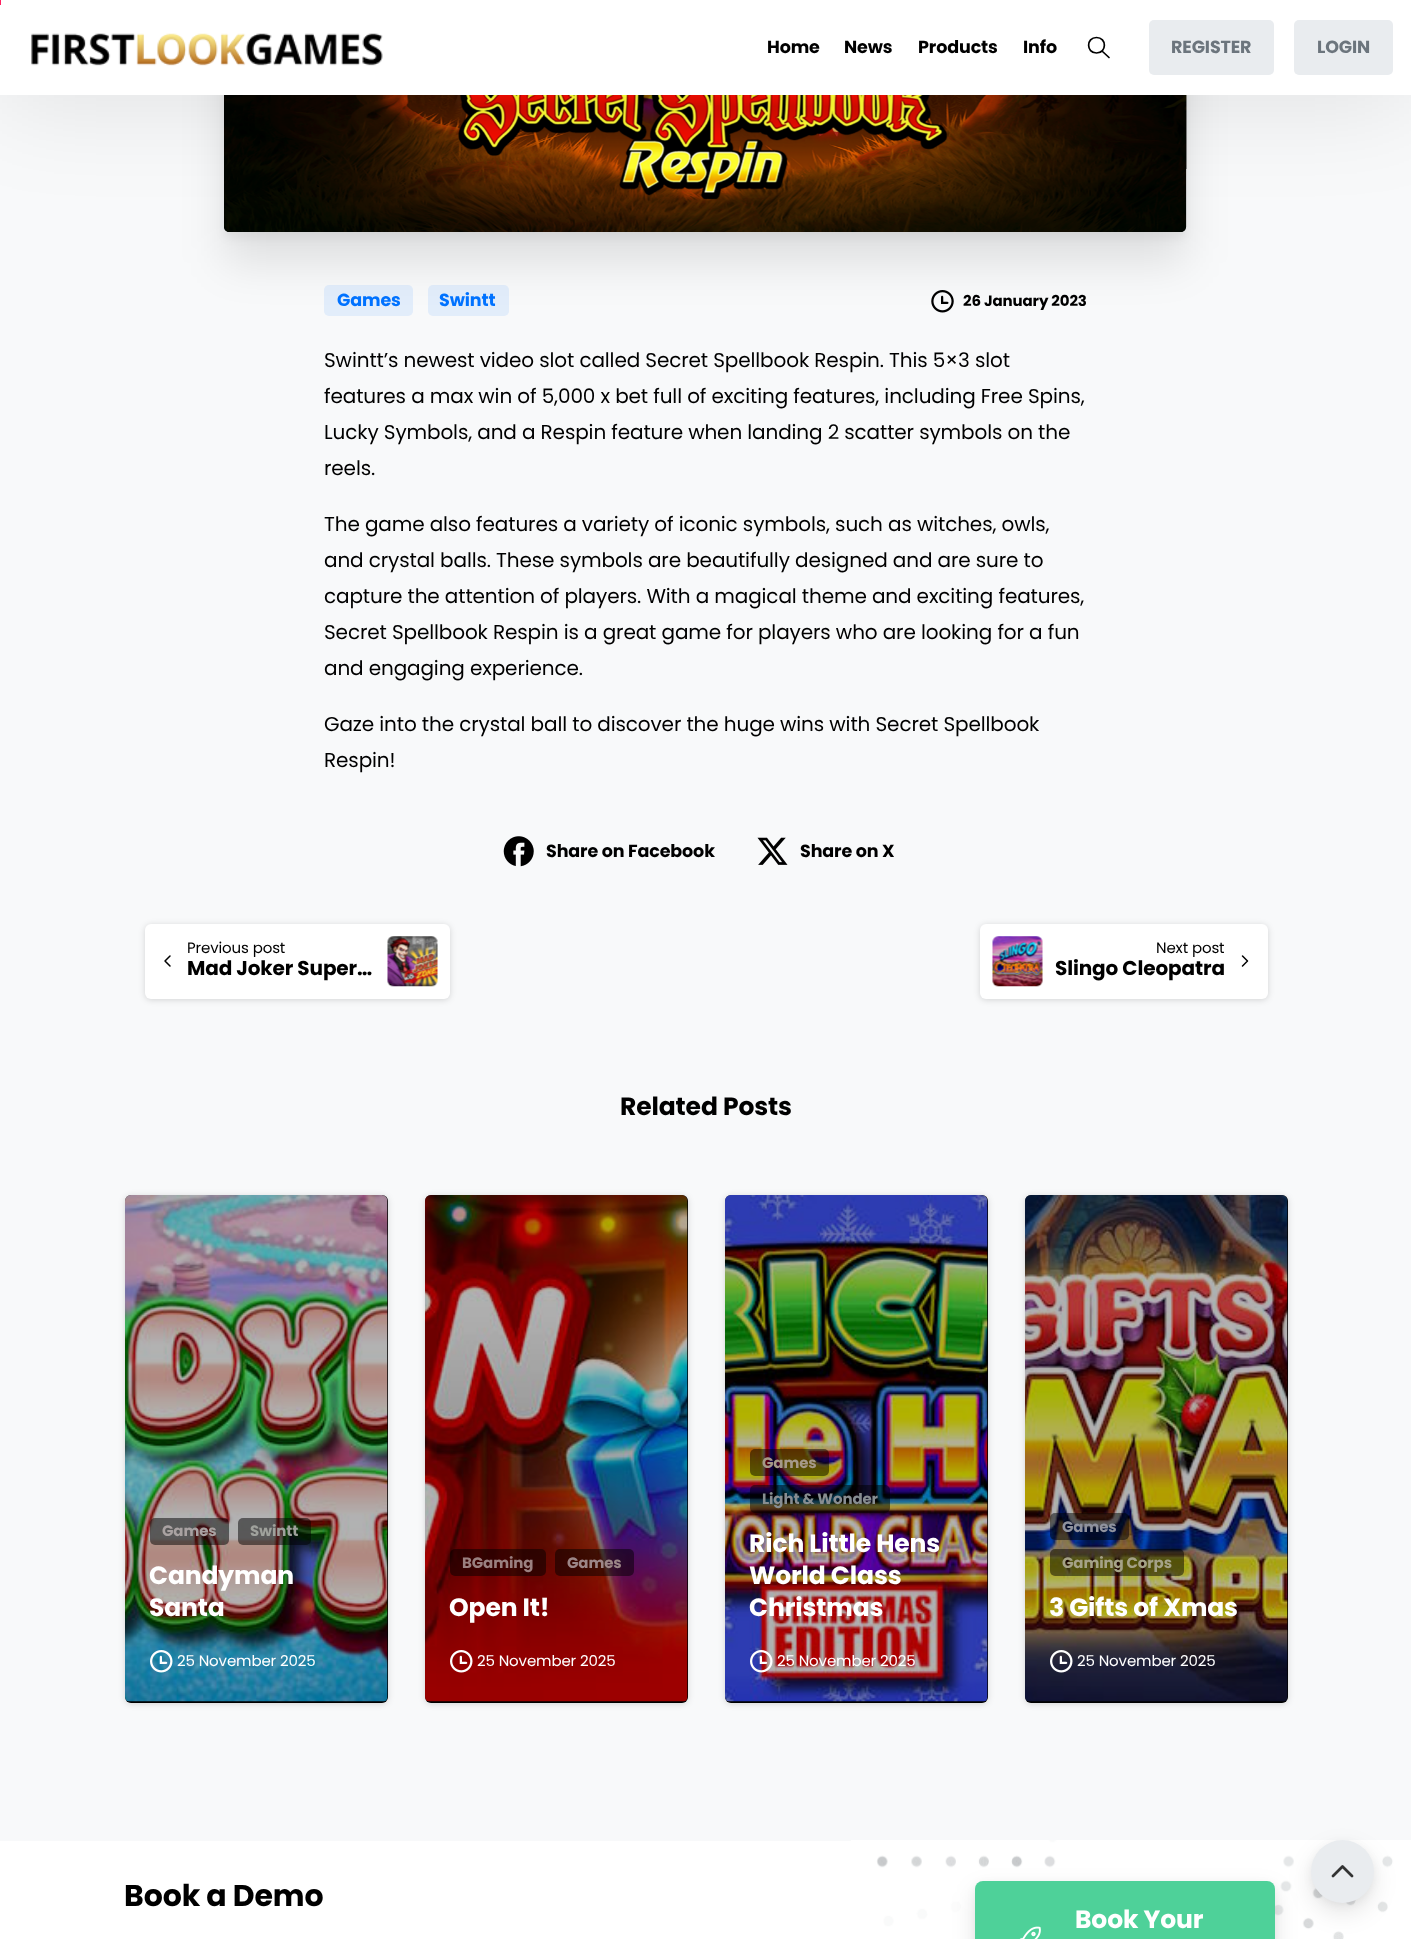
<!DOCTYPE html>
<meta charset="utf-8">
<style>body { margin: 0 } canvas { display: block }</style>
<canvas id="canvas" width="1411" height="1939"></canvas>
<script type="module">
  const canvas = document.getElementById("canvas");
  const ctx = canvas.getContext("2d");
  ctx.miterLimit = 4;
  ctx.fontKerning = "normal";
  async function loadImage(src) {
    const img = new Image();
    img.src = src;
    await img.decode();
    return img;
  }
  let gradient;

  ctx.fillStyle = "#ffffff";
  ctx.fillRect(0, 0, 1411, 1939);
  ctx.fillStyle = "#f8f9fa";
  ctx.fillRect(0, 95, 1411, 1746);
  ctx.fillStyle = "rgba(0, 0, 0, 0.1)";
  ctx.filter = "blur(22px)";
  ctx.beginPath();
  ctx.roundRect(224, -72, 962, 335, 6);
  ctx.fill();
  ctx.filter = "none";
  ctx.fillStyle = "rgba(0, 0, 0, 0.05)";
  ctx.filter = "blur(5px)";
  ctx.beginPath();
  ctx.roundRect(224, -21, 962, 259, 6);
  ctx.fill();
  ctx.filter = "none";
  ctx.drawImage(await loadImage("img2.png"), 224, 95, 963, 137);
  ctx.fillStyle = "rgba(0, 0, 0, 0.1)";
  ctx.filter = "blur(50px)";
  ctx.beginPath();
  ctx.rect(0, 6, 1411, 95);
  ctx.fill();
  ctx.filter = "none";
  ctx.fillStyle = "#ffffff";
  ctx.fillRect(0, 0, 1411, 95);
  gradient = ctx.createLinearGradient(-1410, 2.5, 1.4, 2.5);
  gradient.addColorStop(0, "#0072ff");
  gradient.addColorStop(0.5, "#8224e3");
  gradient.addColorStop(1, "#ff2160");
  ctx.fillStyle = gradient;
  ctx.fillRect(0, 0, 1, 5);
  ctx.drawImage(await loadImage("img1.png"), 31, 33, 352, 33);
  ctx.letterSpacing = "-0.12px";
  ctx.font = "bold 17.5px Poppins";
  ctx.fillStyle = "#000000";
  ctx.fillText("Home", 767, 53);
  ctx.fillText("News", 844, 53);
  ctx.fillText("Products", 918, 53);
  ctx.fillText("Info", 1023, 53);
  ctx.beginPath();
  ctx.moveTo(1096.5, 53);
  ctx.bezierCurveTo(1107, 53, 1107, 37.5, 1096.5, 37.5);
  ctx.bezierCurveTo(1086, 37.5, 1086, 53, 1096.5, 53);
  ctx.closePath();
  ctx.moveTo(1102, 51);
  ctx.lineTo(1109, 57.5);
  ctx.strokeStyle = "#000000";
  ctx.lineWidth = 1.7;
  ctx.lineCap = "round";
  ctx.lineJoin = "round";
  ctx.stroke();
  ctx.fillStyle = "#e9ecef";
  ctx.beginPath();
  ctx.roundRect(1149, 20, 125, 55, 5);
  ctx.fill();
  ctx.fillStyle = "#6c757d";
  ctx.fillText("REGISTER", 1171, 53);
  ctx.fillStyle = "#e9ecef";
  ctx.beginPath();
  ctx.roundRect(1294, 20, 99, 55, 5);
  ctx.fill();
  ctx.fillStyle = "#6c757d";
  ctx.fillText("LOGIN", 1317, 53);
  ctx.fillStyle = "rgba(102, 170, 255, 0.15)";
  ctx.beginPath();
  ctx.roundRect(324, 285, 89, 31, 5);
  ctx.fill();
  ctx.fillStyle = "#0072ff";
  ctx.fillText("Games", 337, 306);
  ctx.fillStyle = "rgba(102, 170, 255, 0.15)";
  ctx.beginPath();
  ctx.roundRect(428, 285, 81, 31, 5);
  ctx.fill();
  ctx.fillStyle = "#0072ff";
  ctx.fillText("Swintt", 439, 306);
  ctx.drawImage(await loadImage("img3.png"), 931, 290, 23, 23);
  ctx.font = "bold 15px Poppins";
  ctx.fillStyle = "#000000";
  ctx.fillText("26 January 2023", 963, 306);
  ctx.font = "20px Poppins";
  ctx.fillText("Swintt’s newest video slot called Secret Spellbook Respin. This 5×3 slot", 324, 367);
  ctx.fillText("features a max win of 5,000 x bet full of exciting features, including Free Spins,", 324, 403);
  ctx.fillText("Lucky Symbols, and a Respin feature when landing 2 scatter symbols on the", 324, 439);
  ctx.fillText("reels.", 324, 475);
  ctx.fillText("The game also features a variety of iconic symbols, such as witches, owls,", 324, 531);
  ctx.fillText("and crystal balls. These symbols are beautifully designed and are sure to", 324, 567);
  ctx.fillText("capture the attention of players. With a magical theme and exciting features,", 324, 603);
  ctx.fillText("Secret Spellbook Respin is a great game for players who are looking for a fun", 324, 639);
  ctx.fillText("and engaging experience.", 324, 675);
  ctx.fillText("Gaze into the crystal ball to discover the huge wins with Secret Spellbook", 324, 731);
  ctx.fillText("Respin!", 324, 767);
  ctx.drawImage(await loadImage("img4.png"), 503, 836, 31, 31);
  ctx.font = "bold 17.5px Poppins";
  ctx.fillText("Share on Facebook", 546, 857);
  ctx.drawImage(await loadImage("img5.png"), 757, 837, 31, 28);
  ctx.fillText("Share on X", 800, 857);
  ctx.fillStyle = "rgba(0, 0, 0, 0.15)";
  ctx.filter = "blur(3px)";
  ctx.beginPath();
  ctx.roundRect(145, 925, 305, 75, 6);
  ctx.fill();
  ctx.filter = "none";
  ctx.fillStyle = "#ffffff";
  ctx.beginPath();
  ctx.roundRect(145, 924, 305, 75, 6);
  ctx.fill();
  ctx.beginPath();
  ctx.moveTo(170, 966);
  ctx.lineTo(165, 961);
  ctx.lineTo(170, 956);
  ctx.lineWidth = 1.5;
  ctx.stroke();
  ctx.font = "15px Poppins";
  ctx.fillStyle = "#000000";
  ctx.fillText("Previous post", 187, 953);
  ctx.font = "bold 20px Poppins";
  ctx.fillText("Mad Joker Super…", 187, 975);
  ctx.drawImage(await loadImage("img6.png"), 387, 936, 51, 51);
  ctx.fillStyle = "rgba(0, 0, 0, 0.15)";
  ctx.filter = "blur(3px)";
  ctx.beginPath();
  ctx.roundRect(980, 925, 288, 75, 6);
  ctx.fill();
  ctx.filter = "none";
  ctx.fillStyle = "#ffffff";
  ctx.beginPath();
  ctx.roundRect(980, 924, 288, 75, 6);
  ctx.fill();
  ctx.drawImage(await loadImage("img7.png"), 992, 936, 51, 51);
  ctx.font = "15px Poppins";
  ctx.fillStyle = "#000000";
  ctx.fillText("Next post", 1156, 953);
  ctx.font = "bold 20px Poppins";
  ctx.fillText("Slingo Cleopatra", 1055, 975);
  ctx.beginPath();
  ctx.moveTo(1242.5, 966);
  ctx.lineTo(1247.5, 961);
  ctx.lineTo(1242.5, 956);
  ctx.stroke();
  ctx.font = "bold 25px Poppins";
  ctx.fillText("Related Posts", 620, 1115);
  ctx.fillStyle = "rgba(0, 0, 0, 0.15)";
  ctx.filter = "blur(3px)";
  ctx.beginPath();
  ctx.roundRect(125, 1196, 263, 508, 6);
  ctx.fill();
  ctx.filter = "none";
  ctx.fillStyle = "#000000";
  ctx.beginPath();
  ctx.roundRect(125, 1195, 263, 508, 6);
  ctx.fill();
  ctx.drawImage(await loadImage("img8.png"), 125, 1195, 263, 507);
  ctx.fillStyle = "rgba(0, 0, 0, 0.5)";
  ctx.beginPath();
  ctx.roundRect(150, 1518, 79, 27, 5);
  ctx.fill();
  ctx.font = "bold 15px Poppins";
  ctx.fillStyle = "#a9a2a2";
  ctx.fillText("Games", 162, 1536);
  ctx.fillStyle = "rgba(0, 0, 0, 0.5)";
  ctx.beginPath();
  ctx.roundRect(238, 1518, 73, 27, 5);
  ctx.fill();
  ctx.fillStyle = "#9fa19c";
  ctx.fillText("Swintt", 250, 1536);
  ctx.font = "bold 25px Poppins";
  ctx.fillStyle = "#ffffff";
  ctx.fillText("Candyman", 149, 1584);
  ctx.fillText("Santa", 149, 1616);
  ctx.drawImage(await loadImage("img9.png"), 150, 1650, 23, 23);
  ctx.font = "15px Poppins";
  ctx.fillText("25 November 2025", 177, 1666);
  ctx.fillStyle = "rgba(0, 0, 0, 0.15)";
  ctx.filter = "blur(3px)";
  ctx.beginPath();
  ctx.roundRect(425, 1196, 263, 508, 6);
  ctx.fill();
  ctx.filter = "none";
  ctx.fillStyle = "#000000";
  ctx.beginPath();
  ctx.roundRect(425, 1195, 263, 508, 6);
  ctx.fill();
  ctx.drawImage(await loadImage("img10.png"), 425, 1195, 263, 507);
  ctx.fillStyle = "rgba(0, 0, 0, 0.5)";
  ctx.beginPath();
  ctx.roundRect(450, 1549, 96, 27, 5);
  ctx.fill();
  ctx.font = "bold 15px Poppins";
  ctx.fillStyle = "#9a8080";
  ctx.fillText("BGaming", 462, 1568);
  ctx.fillStyle = "rgba(0, 0, 0, 0.5)";
  ctx.beginPath();
  ctx.roundRect(555, 1549, 79, 27, 5);
  ctx.fill();
  ctx.fillStyle = "#9c8687";
  ctx.fillText("Games", 567, 1568);
  ctx.font = "bold 25px Poppins";
  ctx.fillStyle = "#ffffff";
  ctx.fillText("Open It!", 449, 1616);
  ctx.drawImage(await loadImage("img11.png"), 450, 1650, 23, 23);
  ctx.font = "15px Poppins";
  ctx.fillText("25 November 2025", 477, 1666);
  ctx.fillStyle = "rgba(0, 0, 0, 0.15)";
  ctx.filter = "blur(3px)";
  ctx.beginPath();
  ctx.roundRect(725, 1196, 263, 508, 6);
  ctx.fill();
  ctx.filter = "none";
  ctx.fillStyle = "#000000";
  ctx.beginPath();
  ctx.roundRect(725, 1195, 263, 508, 6);
  ctx.fill();
  ctx.drawImage(await loadImage("img12.png"), 725, 1195, 263, 507);
  ctx.fillStyle = "rgba(0, 0, 0, 0.5)";
  ctx.beginPath();
  ctx.roundRect(750, 1449, 79, 27, 5);
  ctx.fill();
  ctx.font = "bold 15px Poppins";
  ctx.fillStyle = "#a59988";
  ctx.fillText("Games", 762, 1468);
  ctx.fillStyle = "rgba(0, 0, 0, 0.5)";
  ctx.beginPath();
  ctx.roundRect(750, 1485, 140, 28, 5);
  ctx.fill();
  ctx.fillStyle = "#878d91";
  ctx.fillText("Light & Wonder", 762, 1504);
  ctx.font = "bold 25px Poppins";
  ctx.fillStyle = "#ffffff";
  ctx.fillText("Rich Little Hens", 749, 1552);
  ctx.fillText("World Class", 749, 1584);
  ctx.fillText("Christmas", 749, 1616);
  ctx.drawImage(await loadImage("img13.png"), 750, 1650, 23, 23);
  ctx.font = "15px Poppins";
  ctx.fillText("25 November 2025", 777, 1666);
  ctx.fillStyle = "rgba(0, 0, 0, 0.15)";
  ctx.filter = "blur(3px)";
  ctx.beginPath();
  ctx.roundRect(1025, 1196, 263, 508, 6);
  ctx.fill();
  ctx.filter = "none";
  ctx.fillStyle = "#000000";
  ctx.beginPath();
  ctx.roundRect(1025, 1195, 263, 508, 6);
  ctx.fill();
  ctx.drawImage(await loadImage("img14.png"), 1025, 1195, 263, 507);
  ctx.fillStyle = "rgba(0, 0, 0, 0.5)";
  ctx.beginPath();
  ctx.roundRect(1050, 1513, 79, 27, 5);
  ctx.fill();
  ctx.font = "bold 15px Poppins";
  ctx.fillStyle = "#8f929e";
  ctx.fillText("Games", 1062, 1532);
  ctx.fillStyle = "rgba(0, 0, 0, 0.5)";
  ctx.beginPath();
  ctx.roundRect(1050, 1549, 134, 27, 5);
  ctx.fill();
  ctx.fillStyle = "#a5a287";
  ctx.fillText("Gaming Corps", 1062, 1568);
  ctx.font = "bold 25px Poppins";
  ctx.fillStyle = "#ffffff";
  ctx.fillText("3 Gifts of Xmas", 1049, 1616);
  ctx.drawImage(await loadImage("img15.png"), 1050, 1650, 23, 23);
  ctx.font = "15px Poppins";
  ctx.fillText("25 November 2025", 1077, 1666);
  ctx.drawImage(await loadImage("img16.png"), 851, 1840, 560, 99);
  ctx.font = "bold 30px Poppins";
  ctx.fillStyle = "#000000";
  ctx.fillText("Book a Demo", 124, 1906);
  ctx.fillStyle = "rgba(0, 0, 0, 0.1)";
  ctx.filter = "blur(12px)";
  ctx.beginPath();
  ctx.roundRect(975, 1891, 300, 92, 8);
  ctx.fill();
  ctx.filter = "none";
  ctx.fillStyle = "rgba(0, 0, 0, 0.05)";
  ctx.filter = "blur(4px)";
  ctx.beginPath();
  ctx.roundRect(975, 1884, 300, 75, 8);
  ctx.fill();
  ctx.filter = "none";
  ctx.fillStyle = "#4ed199";
  ctx.beginPath();
  ctx.roundRect(975, 1881, 300, 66, 8);
  ctx.fill();
  ctx.font = "bold 25px Poppins";
  ctx.fillStyle = "#ffffff";
  ctx.fillText("Book Your", 1075, 1928);
  ctx.drawImage(await loadImage("img17.png"), 1019, 1926, 22, 13);
  ctx.fillStyle = "rgba(0, 0, 0, 0.1)";
  ctx.filter = "blur(12px)";
  ctx.beginPath();
  ctx.roundRect(1311, 1850, 63, 63, 31.5);
  ctx.fill();
  ctx.filter = "none";
  ctx.fillStyle = "rgba(0, 0, 0, 0.05)";
  ctx.filter = "blur(4px)";
  ctx.beginPath();
  ctx.roundRect(1311, 1843, 63, 62, 31);
  ctx.fill();
  ctx.filter = "none";
  ctx.fillStyle = "#e9ecef";
  ctx.beginPath();
  ctx.arc(1342.5, 1871.5, 31.5, 0, Math.PI * 2);
  ctx.fill();
  ctx.beginPath();
  ctx.moveTo(1333, 1876);
  ctx.lineTo(1342.5, 1866.5);
  ctx.lineTo(1352, 1876);
  ctx.strokeStyle = "#333333";
  ctx.lineWidth = 2.8;
  ctx.stroke();
</script>
